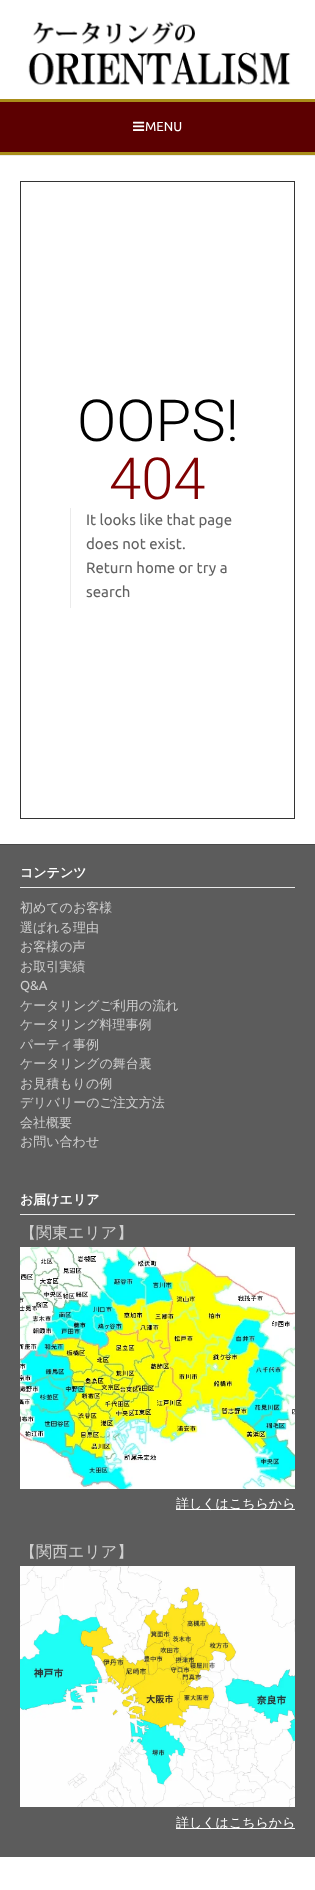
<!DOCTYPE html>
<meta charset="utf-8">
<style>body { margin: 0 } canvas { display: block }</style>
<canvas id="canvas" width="315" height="1890"></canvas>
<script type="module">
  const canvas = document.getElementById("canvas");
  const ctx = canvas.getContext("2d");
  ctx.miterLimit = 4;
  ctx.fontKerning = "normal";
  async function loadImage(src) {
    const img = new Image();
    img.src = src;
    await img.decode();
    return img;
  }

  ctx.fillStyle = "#ffffff";
  ctx.fillRect(0, 0, 315, 1890);
  ctx.fillStyle = "#ebebeb";
  ctx.fillRect(0, 155, 315, 1);
  ctx.drawImage(await loadImage("img1.png"), 28, 21, 263, 64);
  ctx.fillStyle = "rgba(0, 0, 0, 0.4)";
  ctx.filter = "blur(0.5px)";
  ctx.beginPath();
  ctx.rect(0, 99, 315, 56);
  ctx.fill();
  ctx.filter = "none";
  ctx.fillStyle = "#5c0001";
  ctx.fillRect(0, 102, 315, 50);
  ctx.fillStyle = "#a98d19";
  ctx.fillRect(0, 99, 315, 3);
  ctx.fillRect(0, 152, 315, 3);
  ctx.drawImage(await loadImage("img2.png"), 133, 121, 12, 10);
  ctx.font = "13px Ubuntu";
  ctx.fillStyle = "#ffffff";
  ctx.fillText("MENU", 145, 131);
  ctx.strokeStyle = "#333333";
  ctx.strokeRect(20.5, 181.5, 274, 637);
  ctx.font = "300 58px Roboto";
  ctx.fillStyle = "#000000";
  ctx.fillText("OOPS!", 77, 441);
  ctx.fillStyle = "#800001";
  ctx.fillText("404", 109, 499);
  ctx.fillStyle = "#ebebeb";
  ctx.fillRect(70, 508, 1, 100);
  ctx.font = "15px Ubuntu";
  ctx.fillStyle = "#626262";
  ctx.fillText("It looks like that page", 86, 525);
  ctx.fillText("does not exist.", 86, 549);
  ctx.fillText("Return home or try a", 86, 573);
  ctx.fillText("search", 86, 597);
  ctx.fillStyle = "#5c5c5c";
  ctx.fillRect(0, 845, 315, 1012);
  ctx.fillStyle = "#484848";
  ctx.fillRect(0, 844, 315, 1);
  ctx.fillStyle = "#eaeaea";
  ctx.fillRect(20, 887, 275, 1);
  ctx.font = "bold 13px WenQuanYi Zen Hei";
  ctx.fillStyle = "#ffffff";
  ctx.fillText("コンテンツ", 20, 877);
  ctx.font = "500 13px WenQuanYi Zen Hei";
  ctx.fillStyle = "#cfcfcf";
  ctx.fillText("初めてのお客様", 20, 912);
  ctx.fillText("選ばれる理由", 20, 932);
  ctx.fillText("お客様の声", 20, 951);
  ctx.fillText("お取引実績", 20, 971);
  ctx.font = "13px Ubuntu";
  ctx.fillText("Q&A", 20, 990);
  ctx.font = "500 13px WenQuanYi Zen Hei";
  ctx.fillText("ケータリングご利用の流れ", 20, 1010);
  ctx.fillText("ケータリング料理事例", 20, 1029);
  ctx.fillText("パーティ事例", 20, 1049);
  ctx.fillText("ケータリングの舞台裏", 20, 1068);
  ctx.fillText("お見積もりの例", 20, 1088);
  ctx.fillText("デリバリーのご注文方法", 20, 1107);
  ctx.fillText("会社概要", 20, 1127);
  ctx.fillText("お問い合わせ", 20, 1146);
  ctx.fillStyle = "#eaeaea";
  ctx.fillRect(20, 1214, 275, 1);
  ctx.font = "bold 13px WenQuanYi Zen Hei";
  ctx.fillStyle = "#ffffff";
  ctx.fillText("お届けエリア", 20, 1204);
  ctx.save();
  ctx.beginPath();
  ctx.rect(20, 1225, 275, 289);
  ctx.clip();
  ctx.font = "500 16px WenQuanYi Zen Hei";
  ctx.fillStyle = "#cfcfcf";
  ctx.fillText("【関東エリア】", 20, 1238);
  ctx.restore();
  ctx.drawImage(await loadImage("img3.png"), 20, 1247, 275, 242);
  ctx.fillRect(176, 1509, 119, 1);
  ctx.font = "500 13px WenQuanYi Zen Hei";
  ctx.fillText("詳しくはこちらから", 176, 1508);
  ctx.save();
  ctx.beginPath();
  ctx.rect(20, 1544, 275, 288);
  ctx.clip();
  ctx.font = "500 16px WenQuanYi Zen Hei";
  ctx.fillStyle = "#cfcfcf";
  ctx.fillText("【関西エリア】", 20, 1557);
  ctx.restore();
  ctx.drawImage(await loadImage("img4.png"), 20, 1566, 275, 241);
  ctx.fillRect(176, 1828, 119, 1);
  ctx.fillText("詳しくはこちらから", 176, 1827);
</script>
